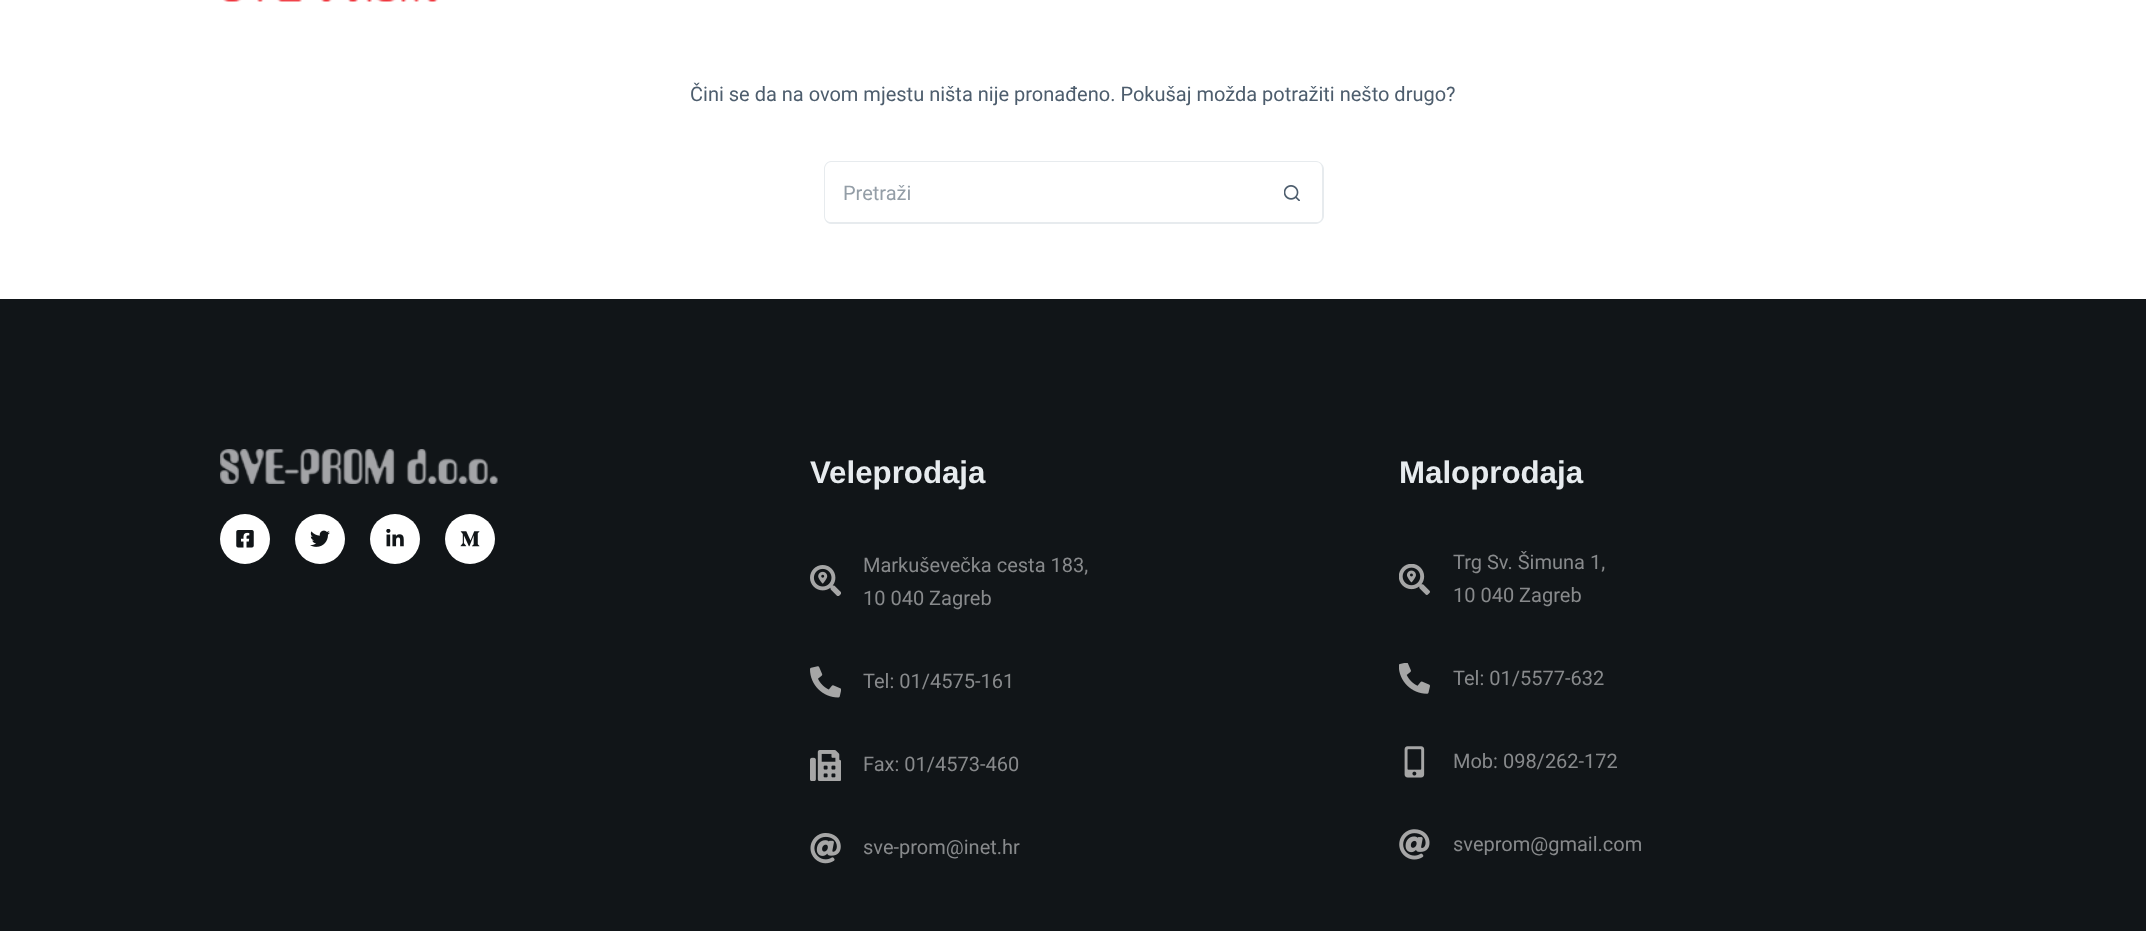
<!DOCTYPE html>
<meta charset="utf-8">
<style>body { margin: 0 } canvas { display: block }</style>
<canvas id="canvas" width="2146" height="931"></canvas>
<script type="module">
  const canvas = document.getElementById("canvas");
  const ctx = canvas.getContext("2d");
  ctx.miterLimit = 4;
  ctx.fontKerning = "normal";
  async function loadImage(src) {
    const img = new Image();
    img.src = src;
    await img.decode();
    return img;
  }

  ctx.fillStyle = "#ffffff";
  ctx.fillRect(0, 0, 2146, 931);
  ctx.drawImage(await loadImage("img1.png"), 223, 0, 215, 2);
  ctx.font = "20px Roboto";
  ctx.fillStyle = "#4d5d6d";
  ctx.fillText("Čini se da na ovom mjestu ništa nije pronađeno. Pokušaj možda potražiti nešto drugo?", 690, 101);
  ctx.fillStyle = "#e7ebee";
  ctx.beginPath();
  ctx.moveTo(831, 161);
  ctx.lineTo(1261, 161);
  ctx.lineTo(1261, 224);
  ctx.lineTo(831, 224);
  ctx.bezierCurveTo(827, 224, 824, 220, 824, 216);
  ctx.lineTo(824, 169);
  ctx.bezierCurveTo(824, 165, 827, 161, 831, 161);
  ctx.closePath();
  ctx.moveTo(831, 162);
  ctx.lineTo(1261, 162);
  ctx.lineTo(1261, 222);
  ctx.lineTo(831, 222);
  ctx.bezierCurveTo(828, 222, 825, 220, 825, 216);
  ctx.lineTo(825, 169);
  ctx.bezierCurveTo(825, 165, 828, 162, 831, 162);
  ctx.closePath();
  ctx.fill("evenodd");
  ctx.fillStyle = "#949ea7";
  ctx.fillText("Pretraži", 843, 200);
  ctx.fillStyle = "#e7ebee";
  ctx.beginPath();
  ctx.moveTo(1261, 161);
  ctx.lineTo(1316, 161);
  ctx.bezierCurveTo(1320, 161, 1324, 165, 1324, 169);
  ctx.lineTo(1324, 216);
  ctx.bezierCurveTo(1324, 220, 1320, 224, 1316, 224);
  ctx.lineTo(1261, 224);
  ctx.closePath();
  ctx.moveTo(1261, 162);
  ctx.lineTo(1316, 162);
  ctx.bezierCurveTo(1320, 162, 1322, 165, 1322, 169);
  ctx.lineTo(1322, 216);
  ctx.bezierCurveTo(1322, 220, 1320, 222, 1316, 222);
  ctx.lineTo(1261, 222);
  ctx.closePath();
  ctx.fill("evenodd");
  ctx.drawImage(await loadImage("img2.png"), 1284, 185, 16, 16);
  ctx.fillStyle = "#111518";
  ctx.fillRect(0, 299, 2146, 632);
  ctx.drawImage(await loadImage("img3.png"), 220, 449, 278, 35);
  ctx.fillStyle = "#ffffff";
  ctx.beginPath();
  ctx.arc(245, 539, 25, 0, Math.PI * 2);
  ctx.fill();
  ctx.drawImage(await loadImage("img4.png"), 236, 530, 18, 18);
  ctx.beginPath();
  ctx.arc(320, 539, 25, 0, Math.PI * 2);
  ctx.fill();
  ctx.drawImage(await loadImage("img5.png"), 310, 530, 20, 17);
  ctx.beginPath();
  ctx.arc(395, 539, 25, 0, Math.PI * 2);
  ctx.fill();
  ctx.drawImage(await loadImage("img6.png"), 386, 529, 18, 18);
  ctx.beginPath();
  ctx.arc(470, 539, 25, 0, Math.PI * 2);
  ctx.fill();
  ctx.drawImage(await loadImage("img7.png"), 460, 531, 20, 16);
  ctx.font = "bold 31.25px Liberation Sans";
  ctx.fillStyle = "#e7ebee";
  ctx.fillText("Veleprodaja", 810, 483);
  ctx.drawImage(await loadImage("img8.png"), 810, 565, 31, 31);
  ctx.font = "20px Roboto";
  ctx.fillStyle = "#888a8c";
  ctx.fillText("Markuševečka cesta 183,", 863, 572);
  ctx.fillText("10 040 Zagreb", 863, 605);
  ctx.drawImage(await loadImage("img9.png"), 810, 666, 31, 32);
  ctx.fillText("Tel: 01/4575-161", 863, 688);
  ctx.drawImage(await loadImage("img10.png"), 810, 750, 31, 31);
  ctx.fillText("Fax: 01/4573-460", 863, 771);
  ctx.drawImage(await loadImage("img11.png"), 810, 833, 31, 31);
  ctx.fillText("sve-prom@inet.hr", 863, 854);
  ctx.font = "bold 31.25px Liberation Sans";
  ctx.fillStyle = "#e7ebee";
  ctx.fillText("Maloprodaja", 1399, 483);
  ctx.drawImage(await loadImage("img12.png"), 1399, 564, 31, 31);
  ctx.font = "20px Roboto";
  ctx.fillStyle = "#888a8c";
  ctx.fillText("Trg Sv. Šimuna 1,", 1453, 569);
  ctx.fillText("10 040 Zagreb", 1453, 602);
  ctx.drawImage(await loadImage("img13.png"), 1399, 663, 31, 31);
  ctx.fillText("Tel: 01/5577-632", 1453, 685);
  ctx.drawImage(await loadImage("img14.png"), 1404, 746, 21, 32);
  ctx.fillText("Mob: 098/262-172", 1453, 768);
  ctx.drawImage(await loadImage("img15.png"), 1399, 829, 31, 31);
  ctx.fillText("sveprom@gmail.com", 1453, 851);
</script>
